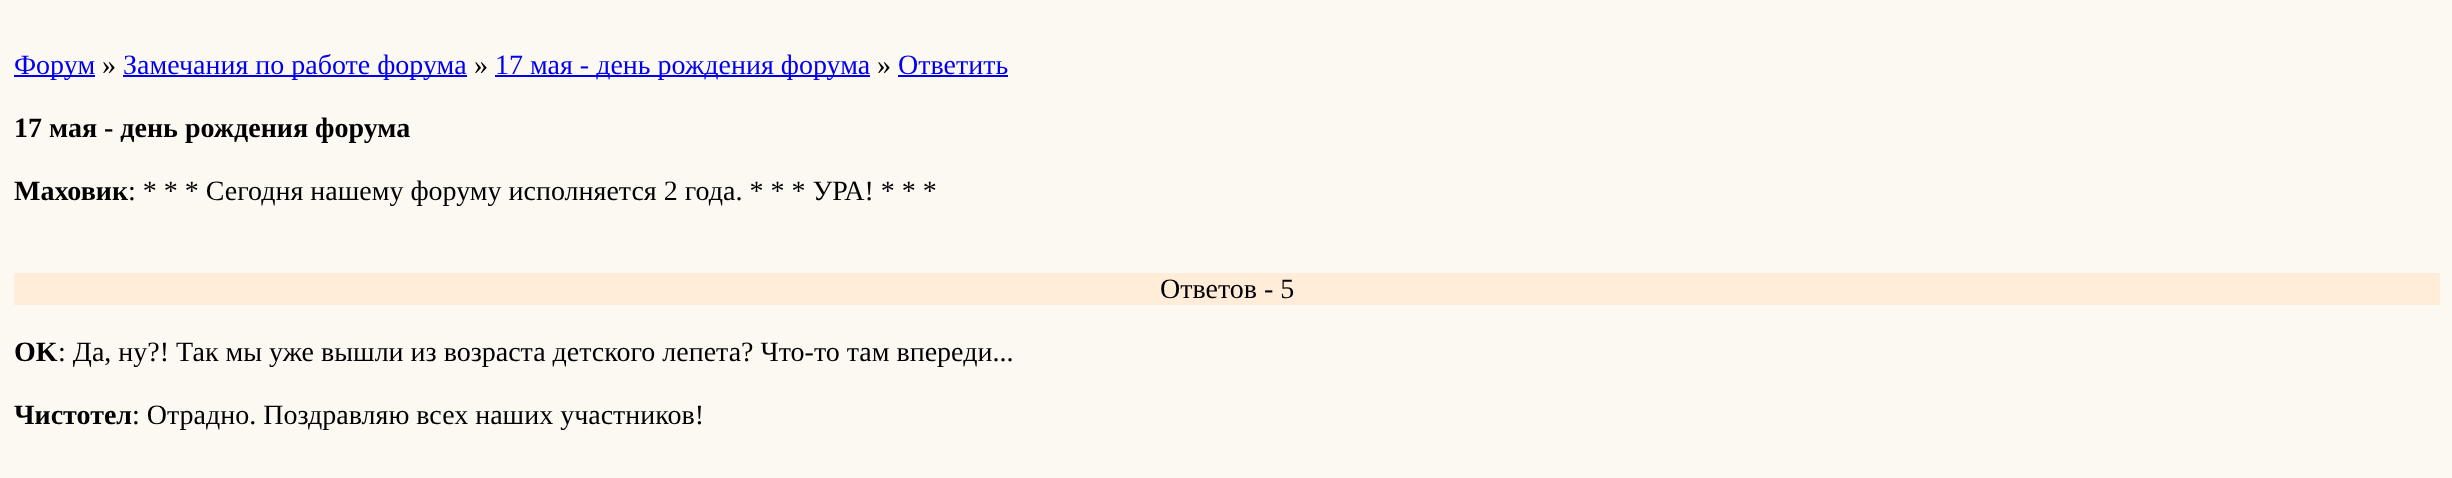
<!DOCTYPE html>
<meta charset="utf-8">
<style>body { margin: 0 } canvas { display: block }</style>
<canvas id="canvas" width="2452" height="478"></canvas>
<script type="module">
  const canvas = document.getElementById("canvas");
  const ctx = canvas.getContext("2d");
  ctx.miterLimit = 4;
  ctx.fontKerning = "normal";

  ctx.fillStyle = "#fcf9f3";
  ctx.fillRect(0, 0, 2452, 478);
  ctx.fillStyle = "#0000ee";
  ctx.fillRect(14, 75, 81, 2);
  ctx.font = "28px Liberation Serif";
  ctx.fillText("Форум", 14, 74);
  ctx.fillStyle = "#000000";
  ctx.fillText("»", 102, 74);
  ctx.fillStyle = "#0000ee";
  ctx.fillRect(123, 75, 344, 2);
  ctx.fillText("Замечания по работе форума", 123, 74);
  ctx.fillStyle = "#000000";
  ctx.fillText("»", 474, 74);
  ctx.fillStyle = "#0000ee";
  ctx.fillRect(495, 75, 375, 2);
  ctx.fillText("17 мая - день рождения форума", 495, 74);
  ctx.fillStyle = "#000000";
  ctx.fillText("»", 877, 74);
  ctx.fillStyle = "#0000ee";
  ctx.fillText("Ответить", 898, 74);
  ctx.fillRect(898, 75, 110, 2);
  ctx.font = "bold 28px Liberation Serif";
  ctx.fillStyle = "#000000";
  ctx.fillText("17 мая - день рождения форума", 14, 137);
  ctx.fillText("Маховик", 14, 200);
  ctx.font = "28px Liberation Serif";
  ctx.fillText(": * * * Сегодня нашему форуму исполняется 2 года. * * * УРА! * * *", 128, 200);
  ctx.fillStyle = "#ffecd9";
  ctx.fillRect(14, 273, 2426, 32);
  ctx.fillStyle = "#000000";
  ctx.fillText("Ответов - 5", 1160, 298);
  ctx.font = "bold 28px Liberation Serif";
  ctx.fillText("OK", 14, 361);
  ctx.font = "28px Liberation Serif";
  ctx.fillText(": Да, ну?! Так мы уже вышли из возраста детского лепета? Что-то там впереди...", 58, 361);
  ctx.font = "bold 28px Liberation Serif";
  ctx.fillText("Чистотел", 14, 424);
  ctx.font = "28px Liberation Serif";
  ctx.fillText(": Отрадно. Поздравляю всех наших участников!", 132, 424);
</script>
